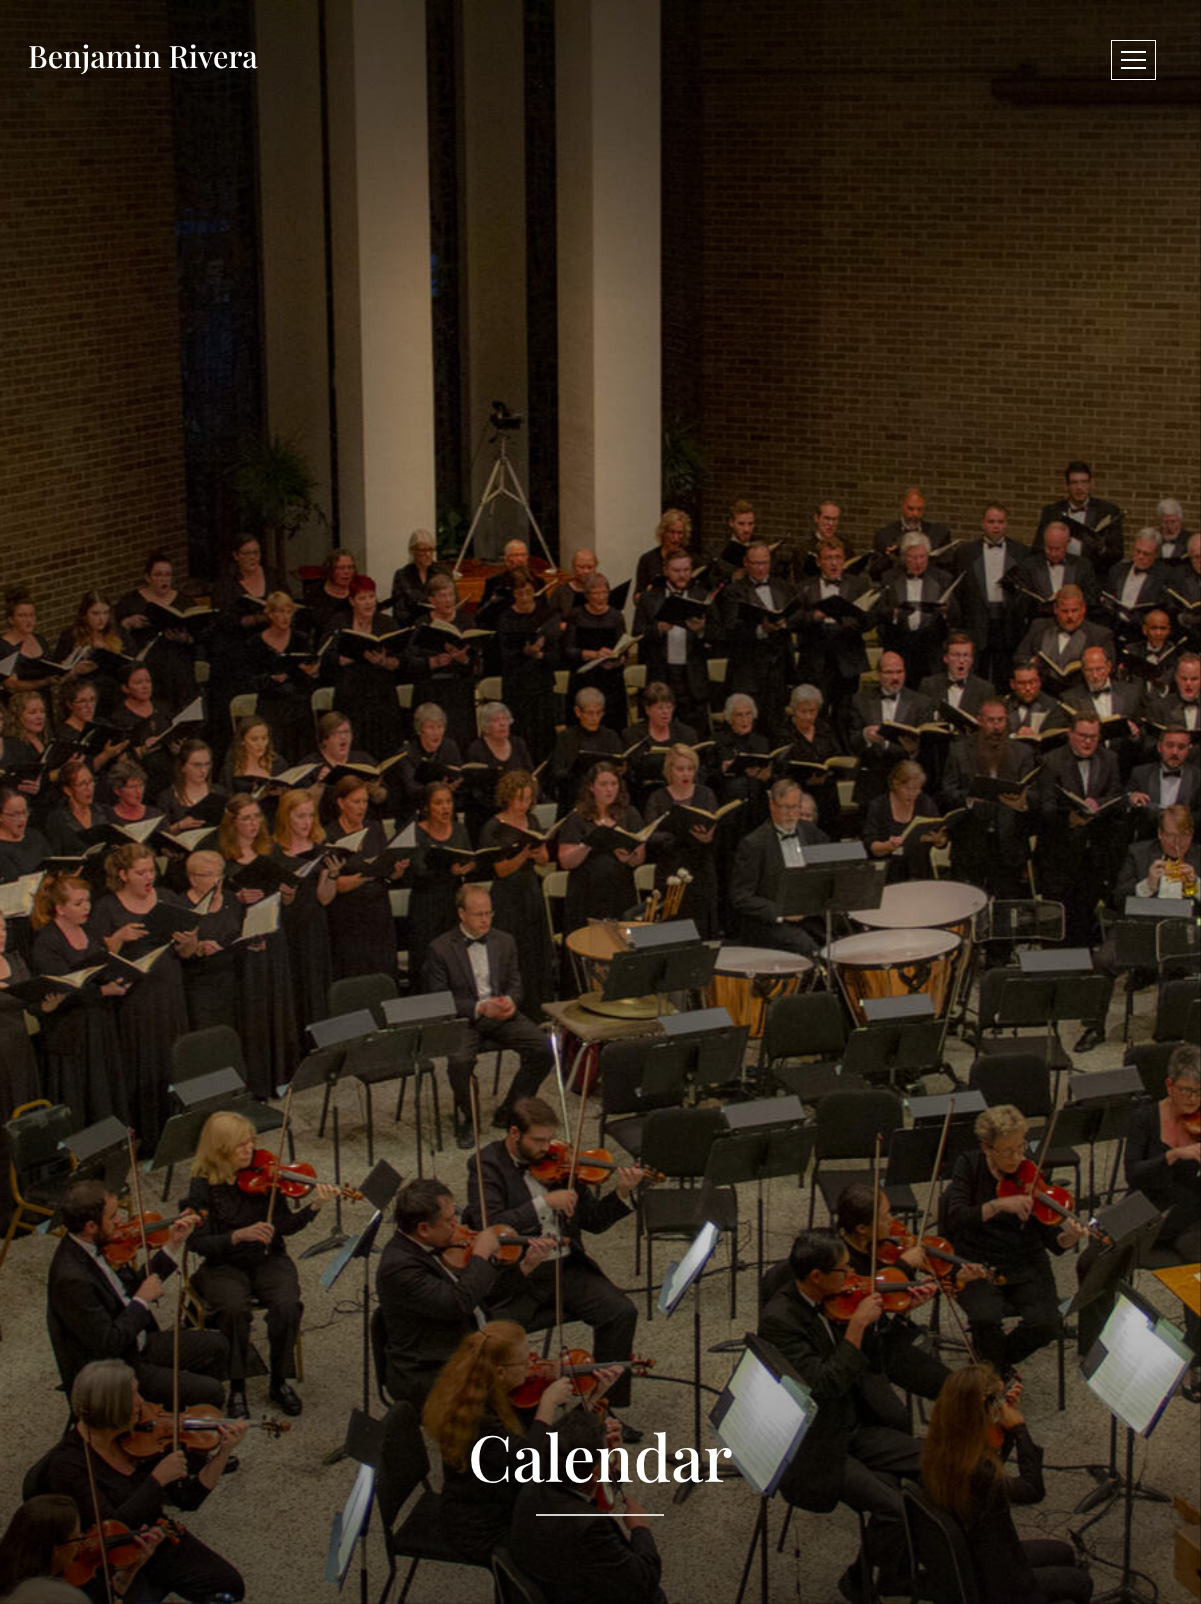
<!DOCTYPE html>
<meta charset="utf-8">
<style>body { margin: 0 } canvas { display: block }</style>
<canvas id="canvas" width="1201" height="1604"></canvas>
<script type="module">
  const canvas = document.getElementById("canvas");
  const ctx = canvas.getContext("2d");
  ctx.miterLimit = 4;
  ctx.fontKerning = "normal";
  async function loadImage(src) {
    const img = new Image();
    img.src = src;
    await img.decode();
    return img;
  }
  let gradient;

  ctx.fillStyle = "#000000";
  ctx.fillRect(0, 0, 1201, 1604);
  ctx.drawImage(await loadImage("img1.png"), 0, 0, 1201, 1604);
  gradient = ctx.createLinearGradient(615, -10, 586, 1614);
  gradient.addColorStop(0.6, "rgba(0, 0, 0, 0)");
  gradient.addColorStop(1, "rgba(0, 0, 0, 0.5)");
  ctx.fillStyle = gradient;
  ctx.fillRect(0, 982, 1201, 622);
  gradient = ctx.createLinearGradient(615, -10, 586, 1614);
  gradient.addColorStop(0, "rgba(0, 0, 0, 0.4)");
  gradient.addColorStop(0.2, "rgba(0, 0, 0, 0)");
  ctx.fillStyle = gradient;
  ctx.fillRect(0, 0, 1201, 299);
  ctx.font = "500 30.75px Playfair Display";
  ctx.fillStyle = "#ffffff";
  ctx.fillText("Benjamin Rivera", 28, 68);
  ctx.font = "500 64px Playfair Display";
  ctx.fillText("Calendar", 468, 1482);
  ctx.fillStyle = "rgba(255, 255, 255, 0.8)";
  ctx.fillRect(536, 1514, 128, 2);
  ctx.strokeStyle = "#ffffff";
  ctx.strokeRect(1111.5, 40.5, 44, 39);
  ctx.fillStyle = "#ffffff";
  ctx.fillRect(1121, 51, 25, 2);
  ctx.fillRect(1121, 59, 25, 2);
  ctx.fillRect(1121, 67, 25, 2);
</script>
